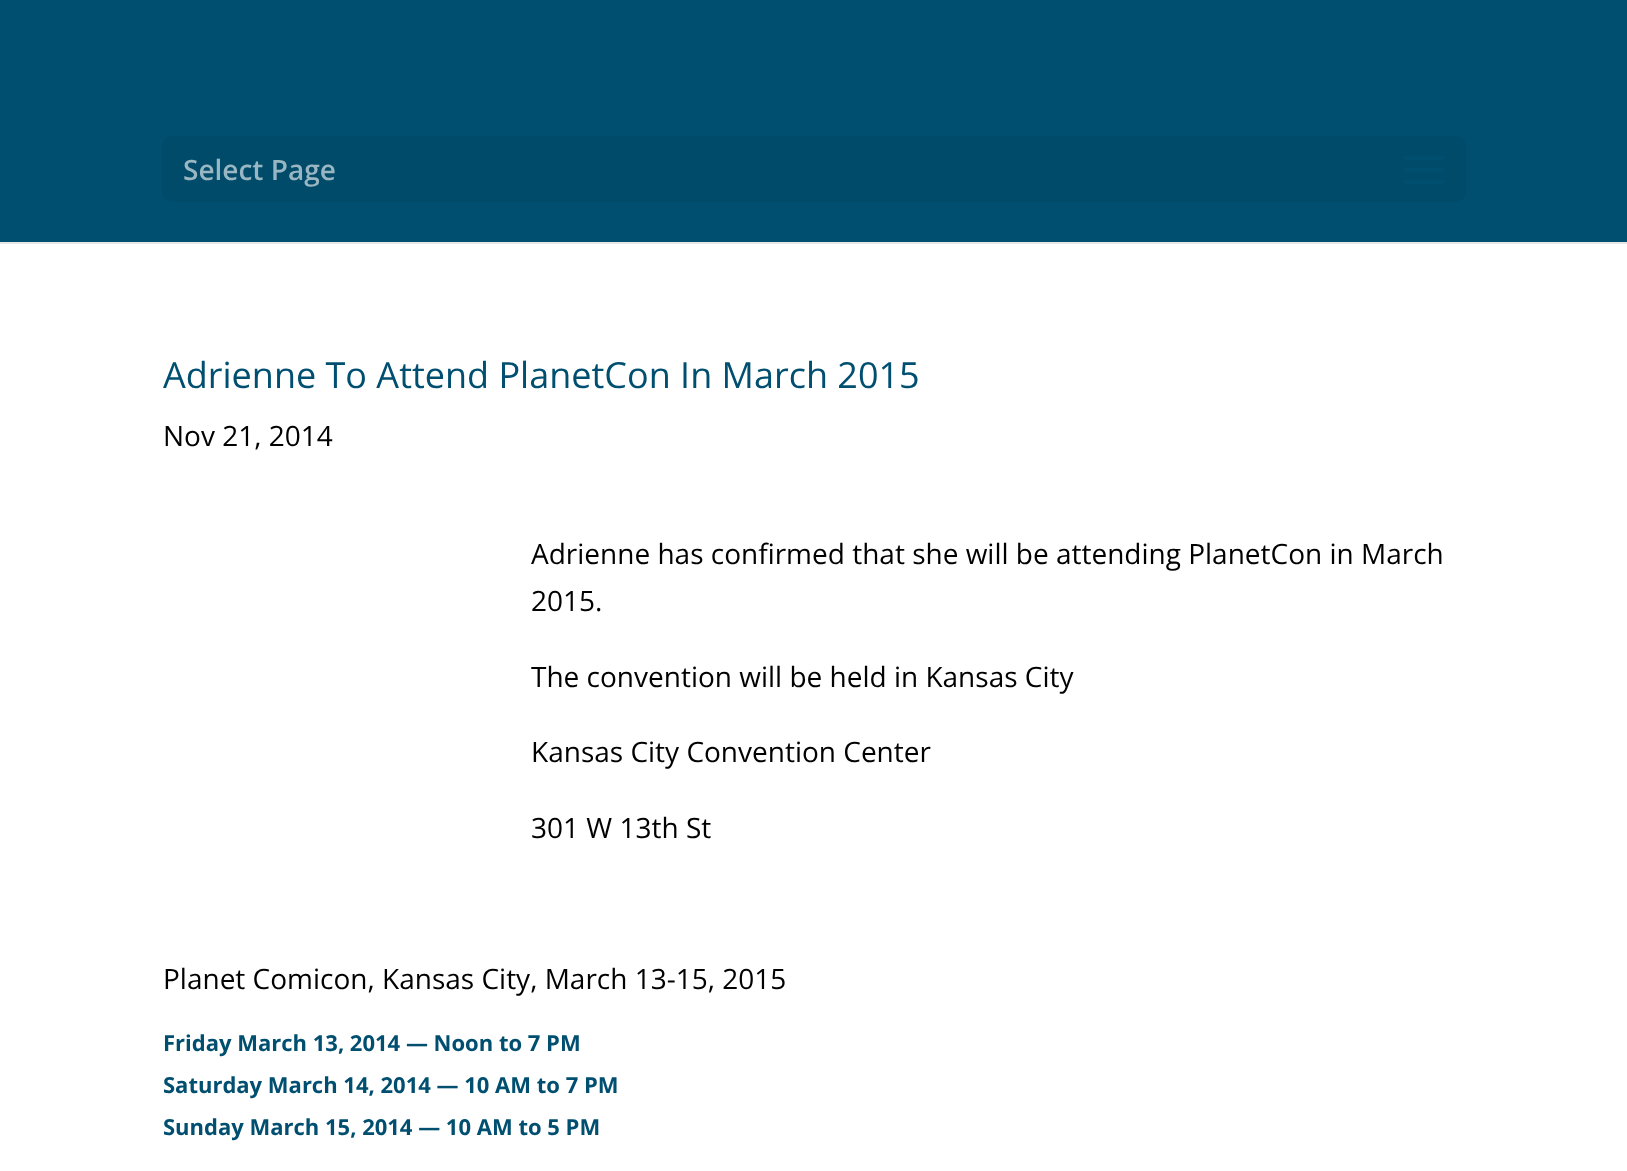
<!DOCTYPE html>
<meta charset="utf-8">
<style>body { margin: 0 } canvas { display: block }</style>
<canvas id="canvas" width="1627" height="1171"></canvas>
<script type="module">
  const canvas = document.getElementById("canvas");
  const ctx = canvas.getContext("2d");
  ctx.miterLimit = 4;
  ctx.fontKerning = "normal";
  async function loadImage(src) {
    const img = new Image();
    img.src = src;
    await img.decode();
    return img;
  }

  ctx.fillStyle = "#ffffff";
  ctx.fillRect(0, 0, 1627, 1171);
  ctx.fillStyle = "#e6e6e6";
  ctx.fillRect(0, 242, 1627, 2);
  ctx.fillStyle = "#004f70";
  ctx.fillRect(0, 0, 1627, 242);
  ctx.fillStyle = "#004b6a";
  ctx.beginPath();
  ctx.roundRect(162, 136, 1304, 66, 10);
  ctx.fill();
  ctx.font = "600 28px Open Sans";
  ctx.fillStyle = "#99b7c3";
  ctx.fillText("Select Page", 183, 180);
  ctx.drawImage(await loadImage("img1.png"), 1404, 156, 40, 28);
  ctx.font = "36px Open Sans";
  ctx.fillStyle = "#004f70";
  ctx.fillText("Adrienne To Attend PlanetCon In March 2015", 163, 388);
  ctx.font = "28px Open Sans";
  ctx.fillStyle = "#000000";
  ctx.fillText("Nov 21, 2014", 163, 446);
  ctx.fillText("Adrienne has confirmed that she will be attending PlanetCon in March", 531, 564);
  ctx.fillText("2015.", 531, 611);
  ctx.fillText("The convention will be held in Kansas City", 531, 687);
  ctx.fillText("Kansas City Convention Center", 531, 762);
  ctx.fillText("301 W 13th St", 531, 838);
  ctx.fillText("Planet Comicon, Kansas City, March 13-15, 2015", 163, 989);
  ctx.font = "bold 22px Open Sans";
  ctx.fillStyle = "#004f70";
  ctx.fillText("Friday March 13, 2014 — Noon to 7 PM", 163, 1051);
  ctx.fillText("Saturday March 14, 2014 — 10 AM to 7 PM", 163, 1093);
  ctx.fillText("Sunday March 15, 2014 — 10 AM to 5 PM", 163, 1135);
</script>
